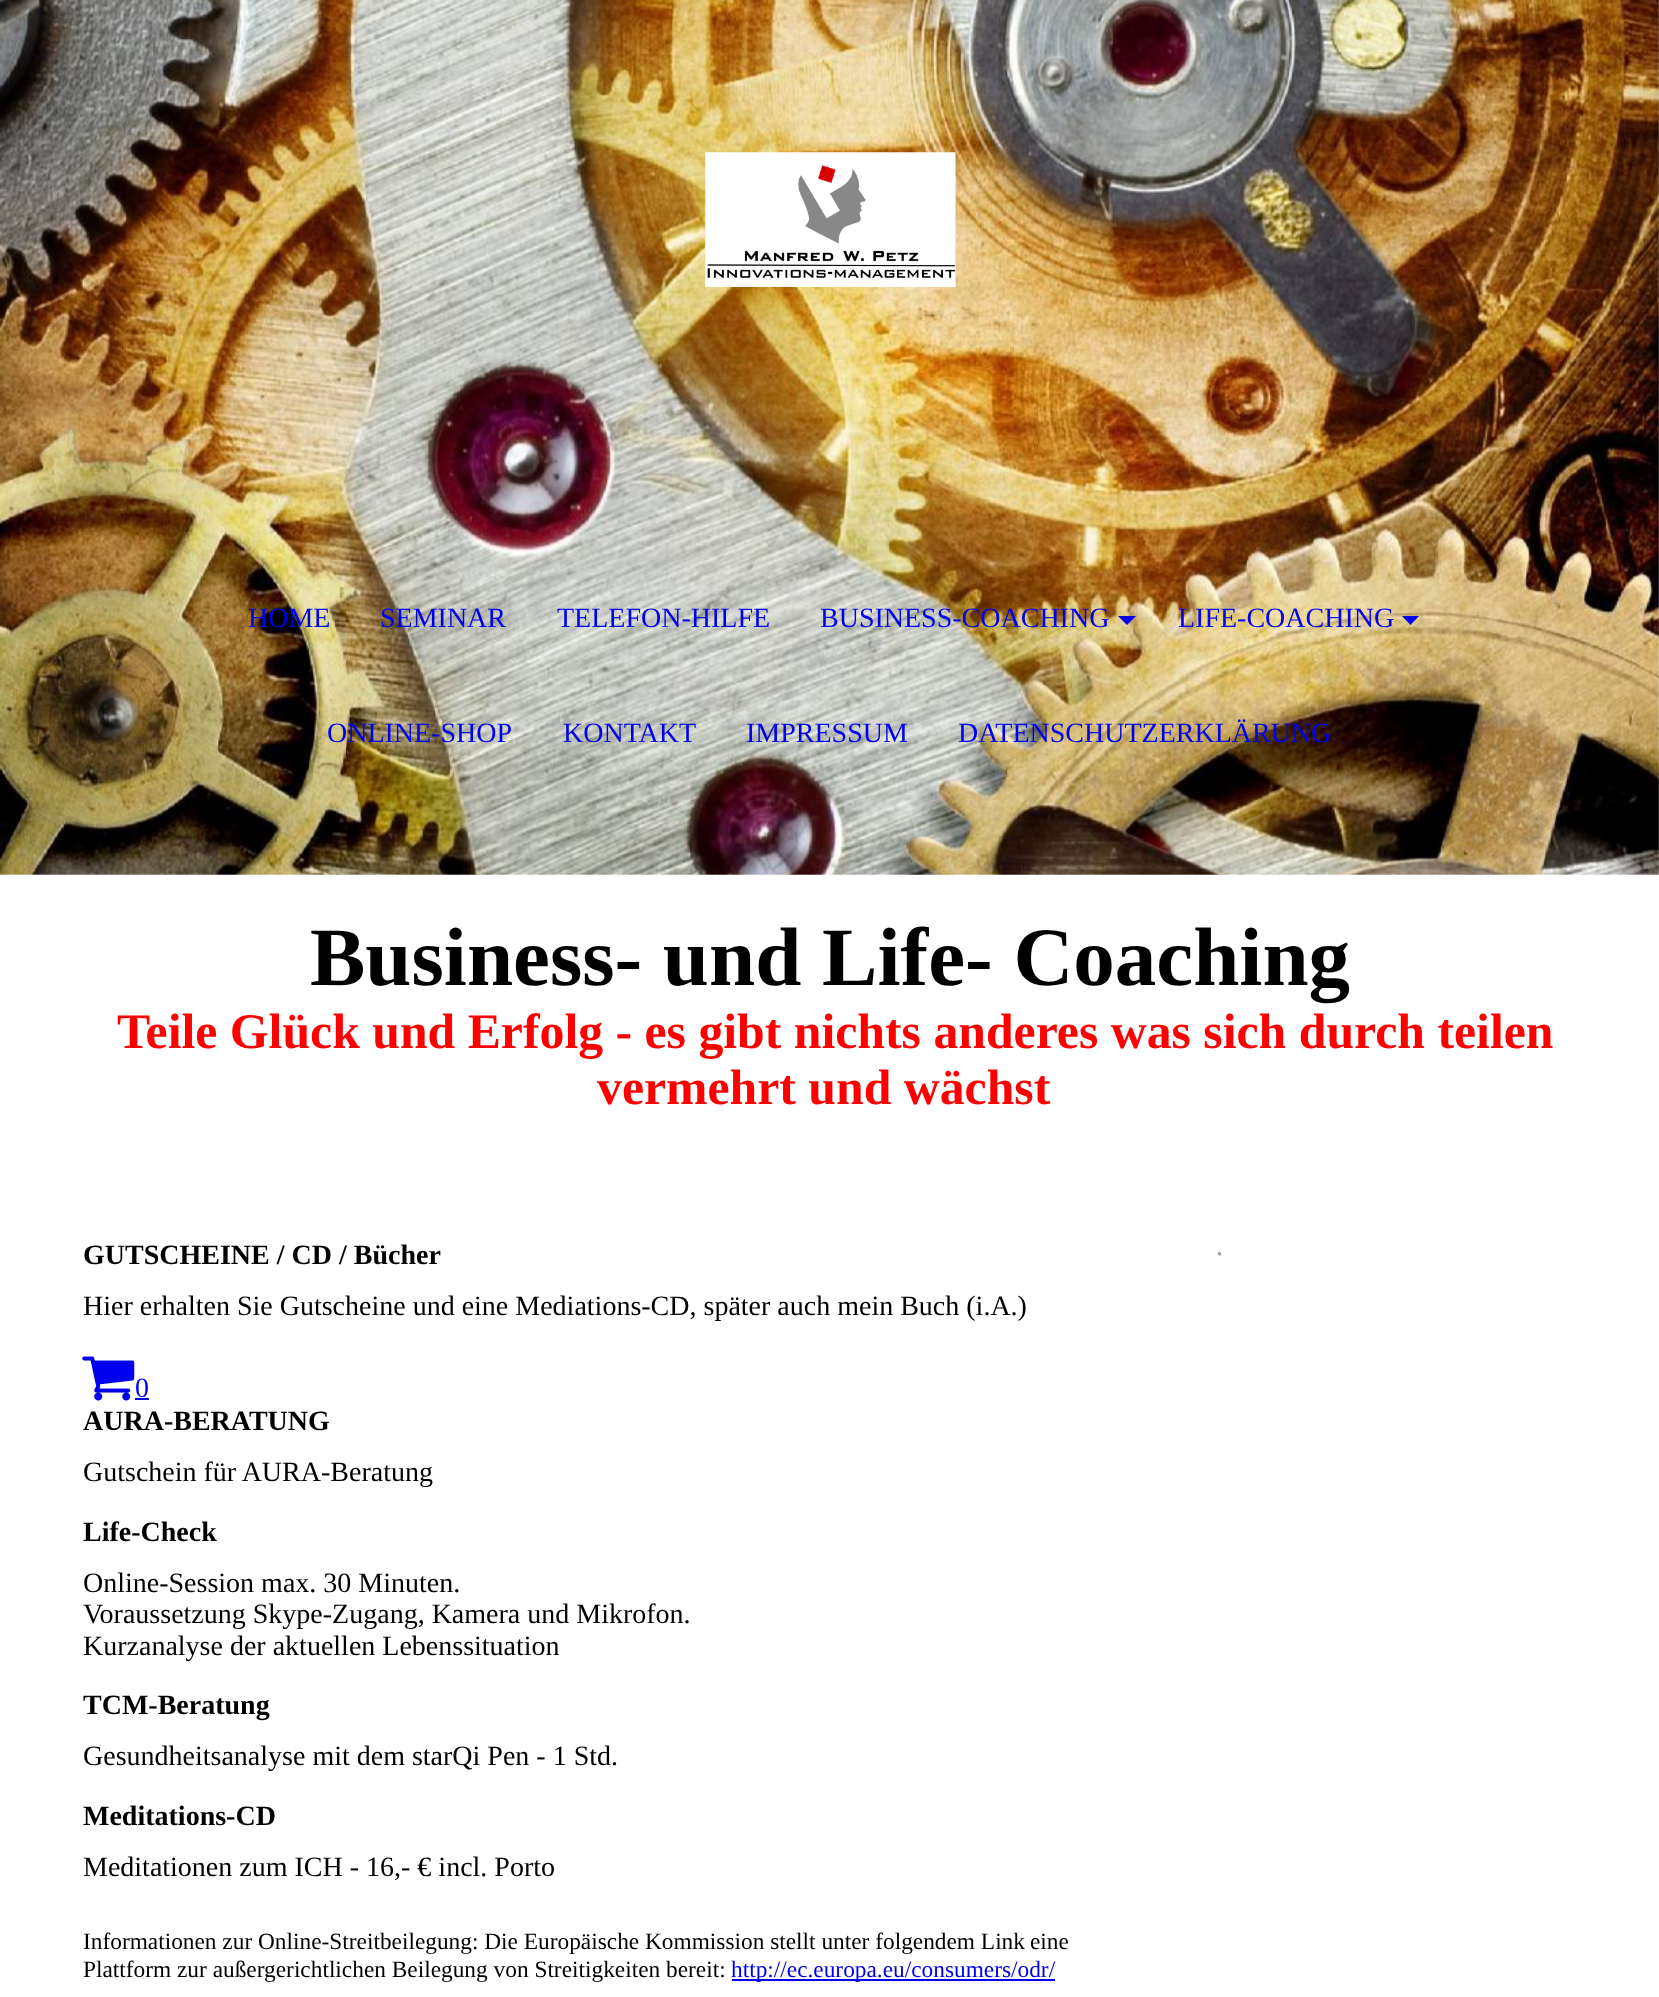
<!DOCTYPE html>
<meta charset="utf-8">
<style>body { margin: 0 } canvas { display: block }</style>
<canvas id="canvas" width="1659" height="1997"></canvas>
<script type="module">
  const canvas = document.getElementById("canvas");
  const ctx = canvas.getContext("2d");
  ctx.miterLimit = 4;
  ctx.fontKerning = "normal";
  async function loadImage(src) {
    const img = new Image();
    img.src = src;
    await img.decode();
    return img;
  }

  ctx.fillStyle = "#ffffff";
  ctx.fillRect(0, 0, 1659, 1997);
  ctx.drawImage(await loadImage("img1.png"), 0, 0, 1659, 875);
  ctx.drawImage(await loadImage("img2.png"), 705, 152, 251, 135);
  ctx.font = "28px Liberation Serif";
  ctx.fillStyle = "#0000ee";
  ctx.fillText("HOME", 248, 627);
  ctx.fillText("SEMINAR", 380, 627);
  ctx.fillText("TELEFON-HILFE", 557, 627);
  ctx.fillText("BUSINESS-COACHING", 820, 627);
  ctx.beginPath();
  ctx.moveTo(1118, 616);
  ctx.lineTo(1136, 616);
  ctx.lineTo(1127, 625);
  ctx.closePath();
  ctx.fill();
  ctx.fillText("LIFE-COACHING", 1178, 627);
  ctx.beginPath();
  ctx.moveTo(1402, 616);
  ctx.lineTo(1419, 616);
  ctx.lineTo(1410.5, 625);
  ctx.closePath();
  ctx.fill();
  ctx.fillText("ONLINE-SHOP", 327, 742);
  ctx.fillText("KONTAKT", 563, 742);
  ctx.fillText("IMPRESSUM", 746, 742);
  ctx.fillText("DATENSCHUTZERKLÄRUNG", 958, 742);
  ctx.font = "bold 83px Liberation Serif";
  ctx.fillStyle = "#000000";
  ctx.fillText("Business- und Life- Coaching", 310, 985);
  ctx.font = "bold 49.75px Liberation Serif";
  ctx.fillStyle = "#ff0000";
  ctx.fillText("Teile Glück und Erfolg - es gibt nichts anderes was sich durch teilen", 117, 1048);
  ctx.fillText("vermehrt und wächst", 597, 1104);
  ctx.font = "bold 28px Liberation Serif";
  ctx.fillStyle = "#000000";
  ctx.fillText("GUTSCHEINE / CD / Bücher", 83, 1264);
  ctx.font = "28px Liberation Serif";
  ctx.fillText("Hier erhalten Sie Gutscheine und eine Mediations-CD, später auch mein Buch (i.A.)", 83, 1315);
  ctx.drawImage(await loadImage("img3.png"), 82, 1356, 53, 45);
  ctx.fillStyle = "#0000ee";
  ctx.fillText("0", 135, 1397);
  ctx.fillRect(135, 1398, 14, 2);
  ctx.font = "bold 28px Liberation Serif";
  ctx.fillStyle = "#000000";
  ctx.fillText("AURA-BERATUNG", 83, 1430);
  ctx.font = "28px Liberation Serif";
  ctx.fillText("Gutschein für AURA-Beratung", 83, 1481);
  ctx.font = "bold 28px Liberation Serif";
  ctx.fillText("Life-Check", 83, 1541);
  ctx.font = "28px Liberation Serif";
  ctx.fillText("Online-Session max. 30 Minuten.", 83, 1592);
  ctx.fillText("Voraussetzung Skype-Zugang, Kamera und Mikrofon.", 83, 1623);
  ctx.fillText("Kurzanalyse der aktuellen Lebenssituation", 83, 1655);
  ctx.font = "bold 28px Liberation Serif";
  ctx.fillText("TCM-Beratung", 83, 1714);
  ctx.font = "28px Liberation Serif";
  ctx.fillText("Gesundheitsanalyse mit dem starQi Pen - 1 Std.", 83, 1765);
  ctx.font = "bold 28px Liberation Serif";
  ctx.fillText("Meditations-CD", 83, 1825);
  ctx.font = "28px Liberation Serif";
  ctx.fillText("Meditationen zum ICH - 16,- € incl. Porto", 83, 1876);
  ctx.font = "23.35px Liberation Serif";
  ctx.fillText("Informationen zur Online-Streitbeilegung: Die Europäische Kommission stellt unter folgendem Link", 83, 1949);
  ctx.fillText("eine", 1030, 1949);
  ctx.fillText("Plattform zur außergerichtlichen Beilegung von Streitigkeiten bereit:", 83, 1977);
  ctx.fillStyle = "#0000ee";
  ctx.fillRect(732, 1979, 323, 2);
  ctx.fillText("http://ec.europa.eu/consumers/odr/", 731, 1977);
  ctx.font = "28px Liberation Serif";
  ctx.fillStyle = "#999999";
  ctx.fillText(".", 1216, 1255);
</script>
